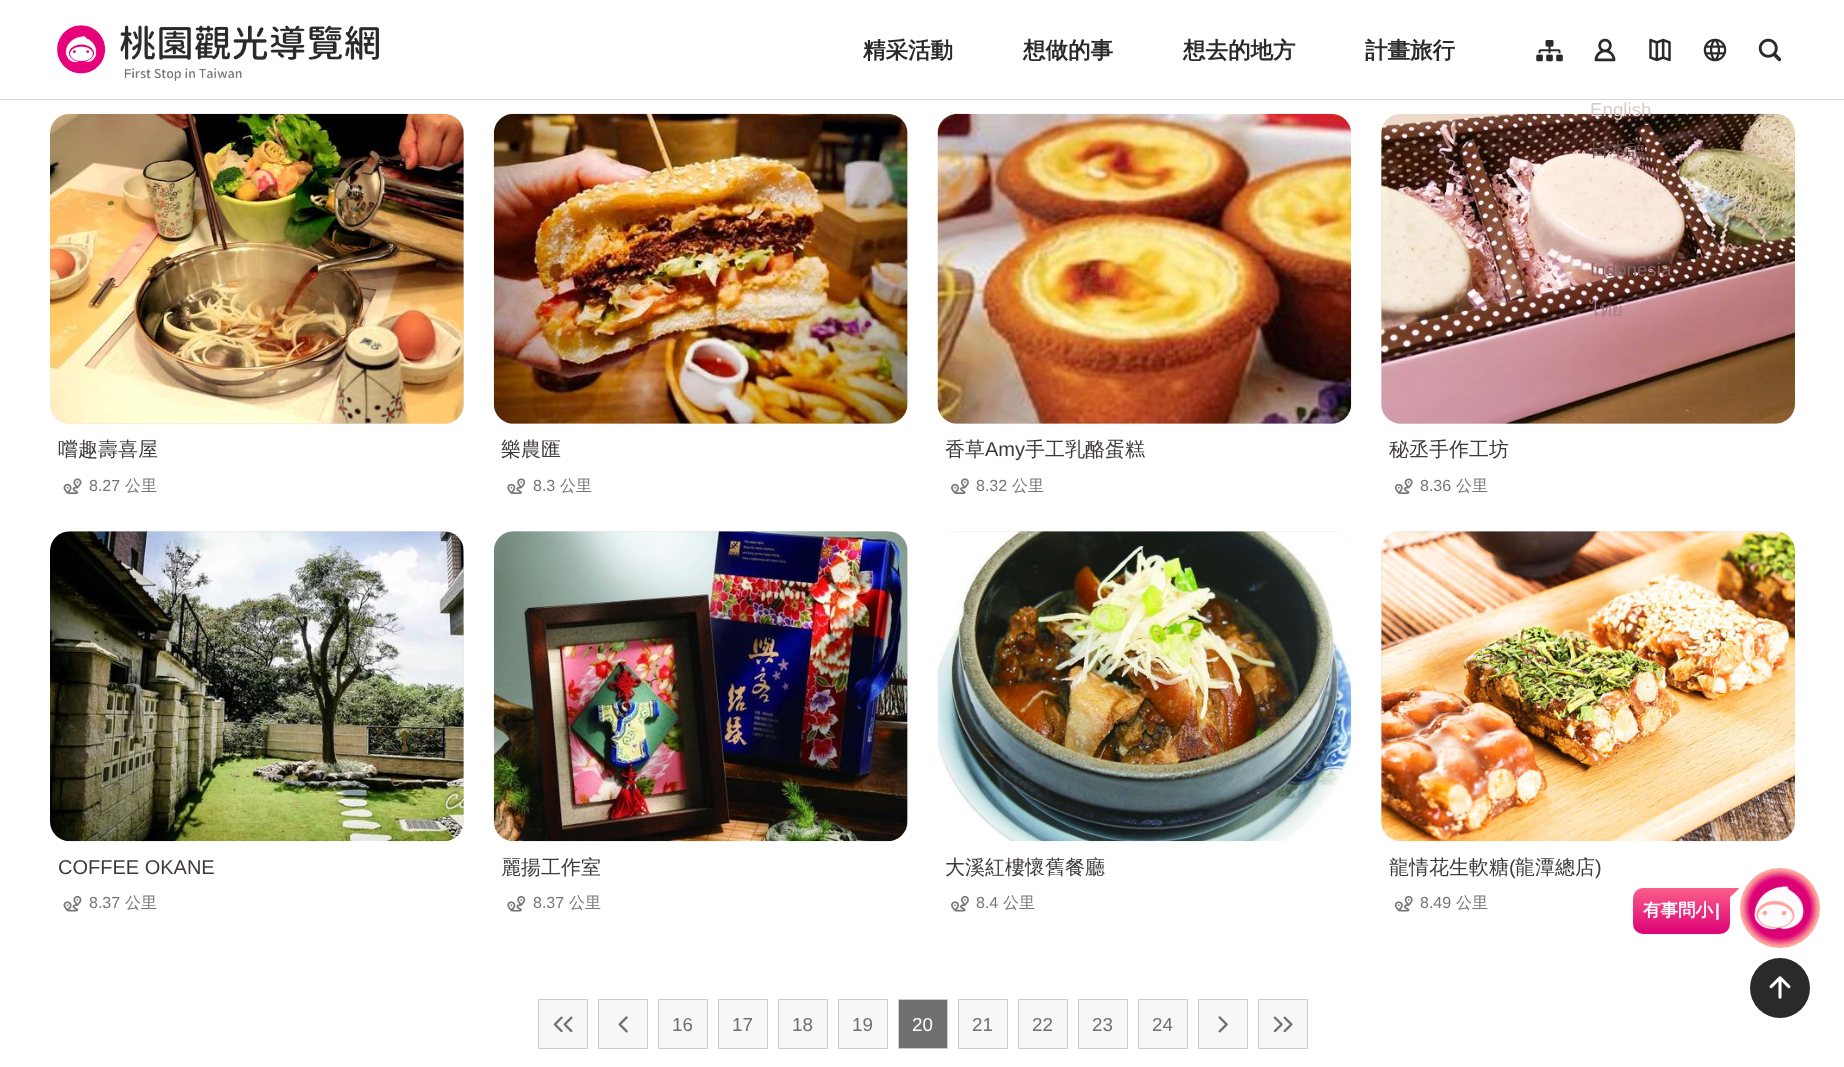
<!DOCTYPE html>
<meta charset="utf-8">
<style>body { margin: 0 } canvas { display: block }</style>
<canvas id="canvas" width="1844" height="1067"></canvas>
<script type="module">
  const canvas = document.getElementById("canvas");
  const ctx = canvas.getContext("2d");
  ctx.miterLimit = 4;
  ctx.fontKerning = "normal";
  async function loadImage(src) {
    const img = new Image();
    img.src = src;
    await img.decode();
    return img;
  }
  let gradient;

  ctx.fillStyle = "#ffffff";
  ctx.fillRect(0, 0, 1844, 1067);
  ctx.drawImage(await loadImage("img1.png"), 57, 25, 322, 56);
  ctx.font = "bold 22.5px WenQuanYi Zen Hei";
  ctx.fillStyle = "#2a2a2a";
  ctx.fillText("精采活動", 863, 58);
  ctx.fillText("想做的事", 1023, 58);
  ctx.fillText("想去的地方", 1183, 58);
  ctx.fillText("計畫旅行", 1365, 58);
  ctx.drawImage(await loadImage("img2.png"), 1536, 40, 27, 22);
  ctx.drawImage(await loadImage("img3.png"), 1594, 38, 22, 24);
  ctx.drawImage(await loadImage("img4.png"), 1649, 38, 22, 24);
  ctx.drawImage(await loadImage("img5.png"), 1758, 38, 24, 24);
  ctx.drawImage(await loadImage("img6.png"), 1703, 38, 24, 24);
  ctx.fillStyle = "#e6e6e6";
  ctx.beginPath();
  ctx.roundRect(1381, 114, 414, 310, 20);
  ctx.fill();
  ctx.drawImage(await loadImage("img13.png"), 1381, 113, 414, 311);
  ctx.font = "18.75px Liberation Sans";
  ctx.fillStyle = "#d7cecc";
  ctx.fillText("English", 1590, 116);
  ctx.font = "500 18.75px WenQuanYi Zen Hei";
  ctx.fillStyle = "#6e514d";
  ctx.fillText("日本語", 1590, 156);
  ctx.font = "18.75px Liberation Sans";
  ctx.fillStyle = "#8b6460";
  ctx.fillText("Indonesia", 1590, 276);
  ctx.font = "18.75px Loma";
  ctx.fillStyle = "#aa7c83";
  ctx.fillText("ไทย", 1590, 316);
  ctx.fillStyle = "#d7d7d7";
  ctx.fillRect(0, 99, 1844, 1);
  ctx.fillStyle = "#e6e6e6";
  ctx.beginPath();
  ctx.roundRect(50, 114, 414, 310, 20);
  ctx.fill();
  ctx.drawImage(await loadImage("img7.png"), 50, 113, 414, 311);
  ctx.font = "500 20px WenQuanYi Zen Hei";
  ctx.fillStyle = "#3e3a39";
  ctx.fillText("嚐趣壽喜屋", 58, 456);
  ctx.drawImage(await loadImage("img8.png"), 63, 478, 19, 17);
  ctx.font = "16px Liberation Sans";
  ctx.fillStyle = "#767676";
  ctx.fillText("8.27", 89, 491);
  ctx.font = "500 16px WenQuanYi Zen Hei";
  ctx.fillText("公里", 125, 491);
  ctx.fillStyle = "#e6e6e6";
  ctx.beginPath();
  ctx.roundRect(494, 114, 414, 310, 20);
  ctx.fill();
  ctx.drawImage(await loadImage("img9.png"), 493, 113, 415, 311);
  ctx.font = "500 20px WenQuanYi Zen Hei";
  ctx.fillStyle = "#3e3a39";
  ctx.fillText("樂農匯", 501, 456);
  ctx.drawImage(await loadImage("img10.png"), 507, 478, 19, 17);
  ctx.font = "16px Liberation Sans";
  ctx.fillStyle = "#767676";
  ctx.fillText("8.3", 533, 491);
  ctx.font = "500 16px WenQuanYi Zen Hei";
  ctx.fillText("公里", 560, 491);
  ctx.fillStyle = "#e6e6e6";
  ctx.beginPath();
  ctx.roundRect(938, 114, 413, 310, 20);
  ctx.fill();
  ctx.drawImage(await loadImage("img11.png"), 937, 113, 415, 311);
  ctx.font = "500 20px WenQuanYi Zen Hei";
  ctx.fillStyle = "#3e3a39";
  ctx.fillText("香草", 945, 456);
  ctx.font = "20px Liberation Sans";
  ctx.fillText("Amy", 985, 456);
  ctx.font = "500 20px WenQuanYi Zen Hei";
  ctx.fillText("手工乳酪蛋糕", 1025, 456);
  ctx.drawImage(await loadImage("img12.png"), 951, 478, 18, 17);
  ctx.font = "16px Liberation Sans";
  ctx.fillStyle = "#767676";
  ctx.fillText("8.32", 976, 491);
  ctx.font = "500 16px WenQuanYi Zen Hei";
  ctx.fillText("公里", 1012, 491);
  ctx.font = "500 20px WenQuanYi Zen Hei";
  ctx.fillStyle = "#3e3a39";
  ctx.fillText("秘丞手作工坊", 1389, 456);
  ctx.drawImage(await loadImage("img14.png"), 1394, 478, 19, 17);
  ctx.font = "16px Liberation Sans";
  ctx.fillStyle = "#767676";
  ctx.fillText("8.36", 1420, 491);
  ctx.font = "500 16px WenQuanYi Zen Hei";
  ctx.fillText("公里", 1456, 491);
  ctx.fillStyle = "#e6e6e6";
  ctx.beginPath();
  ctx.roundRect(50, 531, 414, 310, 20);
  ctx.fill();
  ctx.drawImage(await loadImage("img15.png"), 50, 531, 414, 311);
  ctx.font = "20px Liberation Sans";
  ctx.fillStyle = "#3e3a39";
  ctx.fillText("COFFEE OKANE", 58, 874);
  ctx.drawImage(await loadImage("img16.png"), 63, 895, 19, 17);
  ctx.font = "16px Liberation Sans";
  ctx.fillStyle = "#767676";
  ctx.fillText("8.37", 89, 908);
  ctx.font = "500 16px WenQuanYi Zen Hei";
  ctx.fillText("公里", 125, 908);
  ctx.fillStyle = "#e6e6e6";
  ctx.beginPath();
  ctx.roundRect(494, 531, 414, 310, 20);
  ctx.fill();
  ctx.drawImage(await loadImage("img17.png"), 493, 531, 415, 311);
  ctx.font = "500 20px WenQuanYi Zen Hei";
  ctx.fillStyle = "#3e3a39";
  ctx.fillText("麗揚工作室", 501, 874);
  ctx.drawImage(await loadImage("img18.png"), 507, 896, 19, 16);
  ctx.font = "16px Liberation Sans";
  ctx.fillStyle = "#767676";
  ctx.fillText("8.37", 533, 908);
  ctx.font = "500 16px WenQuanYi Zen Hei";
  ctx.fillText("公里", 569, 908);
  ctx.fillStyle = "#e6e6e6";
  ctx.beginPath();
  ctx.roundRect(938, 531, 413, 310, 20);
  ctx.fill();
  ctx.drawImage(await loadImage("img19.png"), 937, 531, 415, 311);
  ctx.font = "500 20px WenQuanYi Zen Hei";
  ctx.fillStyle = "#3e3a39";
  ctx.fillText("大溪紅樓懷舊餐廳", 945, 874);
  ctx.drawImage(await loadImage("img20.png"), 951, 896, 18, 16);
  ctx.font = "16px Liberation Sans";
  ctx.fillStyle = "#767676";
  ctx.fillText("8.4", 976, 908);
  ctx.font = "500 16px WenQuanYi Zen Hei";
  ctx.fillText("公里", 1003, 908);
  ctx.fillStyle = "#e6e6e6";
  ctx.beginPath();
  ctx.roundRect(1381, 531, 414, 310, 20);
  ctx.fill();
  ctx.drawImage(await loadImage("img21.png"), 1381, 531, 414, 311);
  ctx.font = "500 20px WenQuanYi Zen Hei";
  ctx.fillStyle = "#3e3a39";
  ctx.fillText("龍情花生軟糖", 1389, 874);
  ctx.font = "20px Liberation Sans";
  ctx.fillText("(", 1509, 874);
  ctx.font = "500 20px WenQuanYi Zen Hei";
  ctx.fillText("龍潭總店", 1515, 874);
  ctx.font = "20px Liberation Sans";
  ctx.fillText(")", 1595, 874);
  ctx.drawImage(await loadImage("img22.png"), 1394, 895, 19, 17);
  ctx.font = "16px Liberation Sans";
  ctx.fillStyle = "#767676";
  ctx.fillText("8.49", 1420, 908);
  ctx.font = "500 16px WenQuanYi Zen Hei";
  ctx.fillText("公里", 1456, 908);
  ctx.fillStyle = "#f7f7f7";
  ctx.beginPath();
  ctx.rect(538.5, 999.5, 49, 49);
  ctx.fill();
  ctx.strokeStyle = "#cccccc";
  ctx.stroke();
  ctx.drawImage(await loadImage("img23.png"), 553, 1016, 20, 17);
  ctx.beginPath();
  ctx.rect(598.5, 999.5, 49, 49);
  ctx.fill();
  ctx.stroke();
  ctx.drawImage(await loadImage("img24.png"), 618, 1016, 10, 17);
  ctx.beginPath();
  ctx.rect(658.5, 999.5, 49, 49);
  ctx.fill();
  ctx.stroke();
  ctx.font = "18.75px Liberation Sans";
  ctx.fillStyle = "#707070";
  ctx.fillText("16", 672, 1031);
  ctx.fillStyle = "#f7f7f7";
  ctx.beginPath();
  ctx.rect(718.5, 999.5, 49, 49);
  ctx.fill();
  ctx.stroke();
  ctx.fillStyle = "#707070";
  ctx.fillText("17", 732, 1031);
  ctx.fillStyle = "#f7f7f7";
  ctx.beginPath();
  ctx.rect(778.5, 999.5, 49, 49);
  ctx.fill();
  ctx.stroke();
  ctx.fillStyle = "#707070";
  ctx.fillText("18", 792, 1031);
  ctx.fillStyle = "#f7f7f7";
  ctx.beginPath();
  ctx.rect(838.5, 999.5, 49, 49);
  ctx.fill();
  ctx.stroke();
  ctx.fillStyle = "#707070";
  ctx.fillText("19", 852, 1031);
  ctx.beginPath();
  ctx.rect(898.5, 999.5, 49, 49);
  ctx.fill();
  ctx.stroke();
  ctx.fillStyle = "#ffffff";
  ctx.fillText("20", 912, 1031);
  ctx.fillStyle = "#f7f7f7";
  ctx.beginPath();
  ctx.rect(958.5, 999.5, 49, 49);
  ctx.fill();
  ctx.stroke();
  ctx.fillStyle = "#707070";
  ctx.fillText("21", 972, 1031);
  ctx.fillStyle = "#f7f7f7";
  ctx.beginPath();
  ctx.rect(1018.5, 999.5, 49, 49);
  ctx.fill();
  ctx.stroke();
  ctx.fillStyle = "#707070";
  ctx.fillText("22", 1032, 1031);
  ctx.fillStyle = "#f7f7f7";
  ctx.beginPath();
  ctx.rect(1078.5, 999.5, 49, 49);
  ctx.fill();
  ctx.stroke();
  ctx.fillStyle = "#707070";
  ctx.fillText("23", 1092, 1031);
  ctx.fillStyle = "#f7f7f7";
  ctx.beginPath();
  ctx.rect(1138.5, 999.5, 49, 49);
  ctx.fill();
  ctx.stroke();
  ctx.fillStyle = "#707070";
  ctx.fillText("24", 1152, 1031);
  ctx.fillStyle = "#f7f7f7";
  ctx.beginPath();
  ctx.rect(1198.5, 999.5, 49, 49);
  ctx.fill();
  ctx.stroke();
  ctx.drawImage(await loadImage("img25.png"), 1218, 1016, 10, 17);
  ctx.beginPath();
  ctx.rect(1258.5, 999.5, 49, 49);
  ctx.fill();
  ctx.stroke();
  ctx.drawImage(await loadImage("img26.png"), 1273, 1016, 20, 17);
  ctx.save();
  ctx.beginPath();
  ctx.rect(1730, 888, 10, 10);
  ctx.clip();
  ctx.fillStyle = "#fc5e8a";
  ctx.beginPath();
  ctx.moveTo(1740, 887.5);
  ctx.lineTo(1730, 887.5);
  ctx.lineTo(1730, 897.5);
  ctx.closePath();
  ctx.fill();
  ctx.restore();
  gradient = ctx.createLinearGradient(1681, 888, 1681, 934);
  gradient.addColorStop(0, "#fc5e8a");
  gradient.addColorStop(1, "#dc0175");
  ctx.fillStyle = gradient;
  ctx.beginPath();
  ctx.roundRect(1633, 888, 97, 46, [10, 0, 10, 10]);
  ctx.fill();
  ctx.font = "bold 17.5px WenQuanYi Zen Hei";
  ctx.fillStyle = "#ffffff";
  ctx.fillText("有事問小", 1643, 916);
  ctx.font = "bold 17.5px Liberation Sans";
  ctx.fillText("|", 1715, 916);
  gradient = ctx.createRadialGradient(1780, 908, 0, 1780, 908, 40);
  gradient.addColorStop(0.75, "#dc0175");
  gradient.addColorStop(0.95, "#fea29a");
  ctx.fillStyle = gradient;
  ctx.beginPath();
  ctx.arc(1780, 908, 40, 0, Math.PI * 2);
  ctx.fill();
  ctx.drawImage(await loadImage("img27.png"), 1754, 886, 50, 44);
  ctx.fillStyle = "#2a2a2a";
  ctx.beginPath();
  ctx.arc(1780, 988, 30, 0, Math.PI * 2);
  ctx.fill();
  ctx.drawImage(await loadImage("img28.png"), 1769, 976, 22, 23);
</script>
